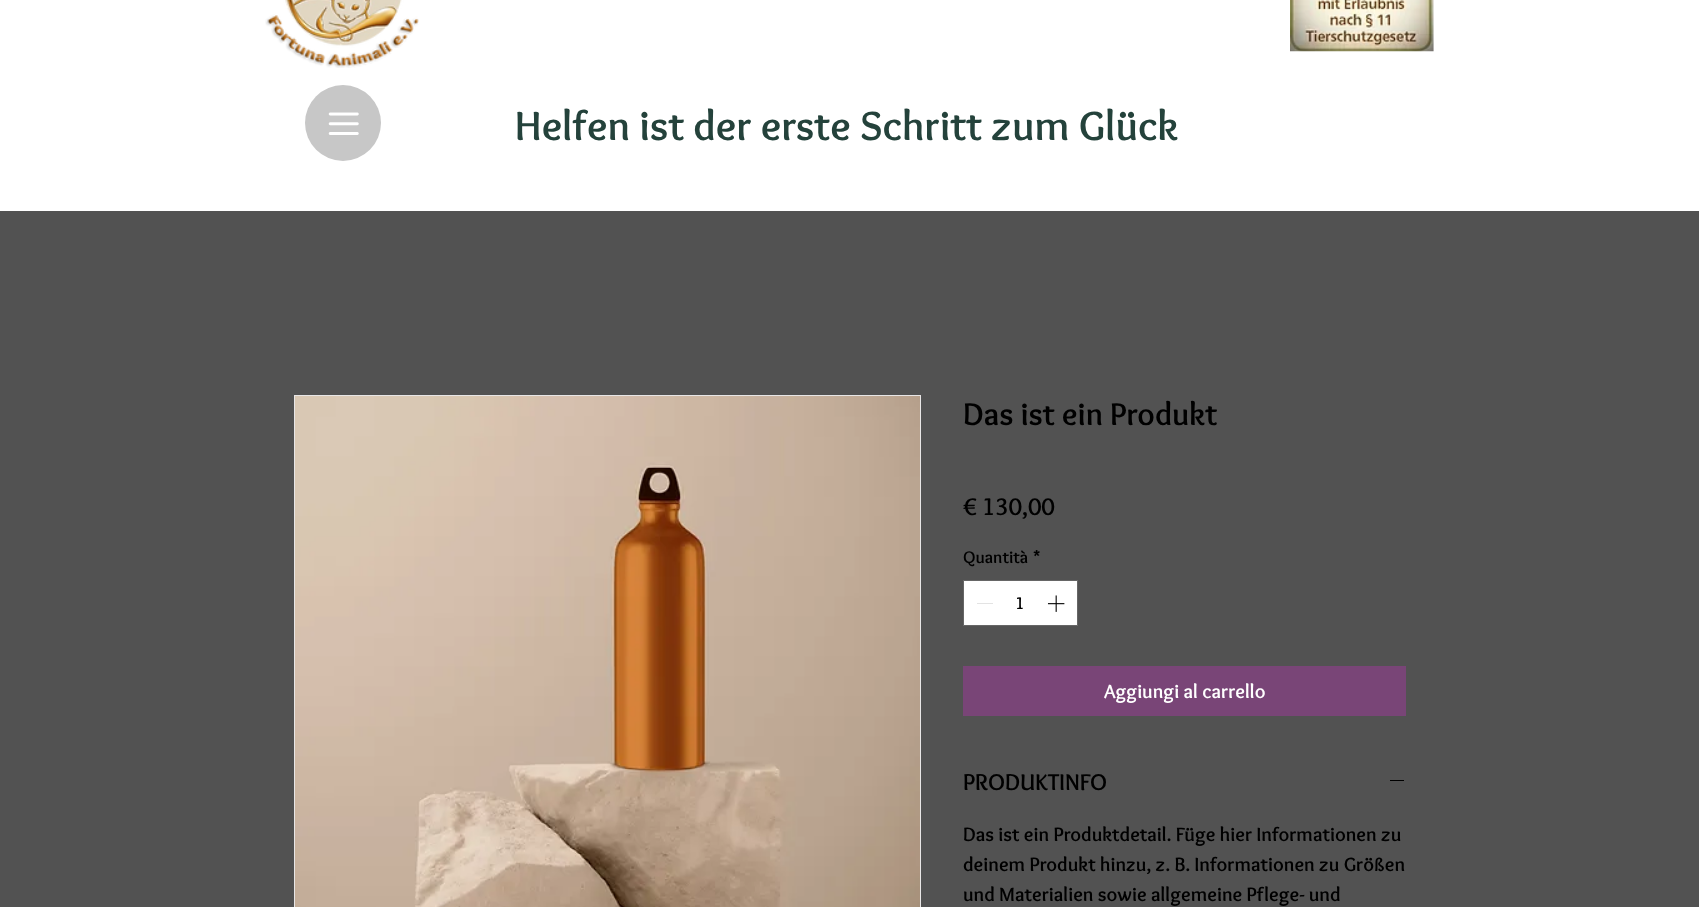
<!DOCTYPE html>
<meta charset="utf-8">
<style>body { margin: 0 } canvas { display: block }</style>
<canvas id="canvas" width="1699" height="907"></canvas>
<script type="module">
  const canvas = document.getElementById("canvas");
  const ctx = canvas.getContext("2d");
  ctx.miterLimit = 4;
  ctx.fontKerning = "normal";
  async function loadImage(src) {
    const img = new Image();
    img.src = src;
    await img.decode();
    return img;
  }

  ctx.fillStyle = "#525252";
  ctx.fillRect(0, 0, 1699, 907);
  ctx.fillStyle = "#ffffff";
  ctx.fillRect(0, 0, 1699, 211);
  ctx.drawImage(await loadImage("img1.png"), 265, 0, 154, 68);
  ctx.drawImage(await loadImage("img2.png"), 1290, 0, 144, 52);
  ctx.fillStyle = "#c7c7c7";
  ctx.beginPath();
  ctx.arc(343, 123, 38, 0, Math.PI * 2);
  ctx.fill();
  ctx.drawImage(await loadImage("img3.png"), 328, 112, 31, 23);
  ctx.font = "bold 42.5px Overlock";
  ctx.fillStyle = "#24423b";
  ctx.fillText("Helfen ist der erste Schritt zum Glück", 515, 140);
  ctx.strokeStyle = "#e8e6e6";
  ctx.strokeRect(294.5, 395.5, 626, 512);
  ctx.drawImage(await loadImage("img4.png"), 295, 396, 625, 511);
  ctx.font = "bold 32.5px Overlock";
  ctx.fillStyle = "#000000";
  ctx.fillText("Das ist ein Produkt", 963, 425);
  ctx.font = "bold 25px Overlock";
  ctx.fillText("€ 130,00", 963, 515);
  ctx.font = "bold 17.5px Overlock";
  ctx.fillText("Quantità", 963, 563);
  ctx.fillText("*", 1033, 563);
  ctx.fillStyle = "#ffffff";
  ctx.beginPath();
  ctx.rect(963.5, 580.5, 114, 45);
  ctx.fill();
  ctx.strokeStyle = "#666666";
  ctx.stroke();
  ctx.fillStyle = "#e3e3e3";
  ctx.fillRect(977, 603, 16, 1);
  ctx.fillStyle = "#000000";
  ctx.fillText("1", 1015, 609);
  ctx.drawImage(await loadImage("img5.png"), 1047, 595, 18, 17);
  ctx.fillStyle = "#794577";
  ctx.fillRect(963, 666, 443, 50);
  ctx.font = "bold 20px Overlock";
  ctx.fillStyle = "#ffffff";
  ctx.fillText("Aggiungi al carrello", 1104, 698);
  ctx.font = "bold 23.75px Overlock";
  ctx.fillStyle = "#000000";
  ctx.fillText("PRODUKTINFO", 963, 790);
  ctx.fillRect(1390, 780, 14, 1);
  ctx.font = "bold 20px Overlock";
  ctx.fillText("Das ist ein Produktdetail. Füge hier Informationen zu", 963, 841);
  ctx.fillText("deinem Produkt hinzu, z. B. Informationen zu Größen", 963, 871);
  ctx.fillText("und Materialien sowie allgemeine Pflege- und", 963, 901);
</script>
